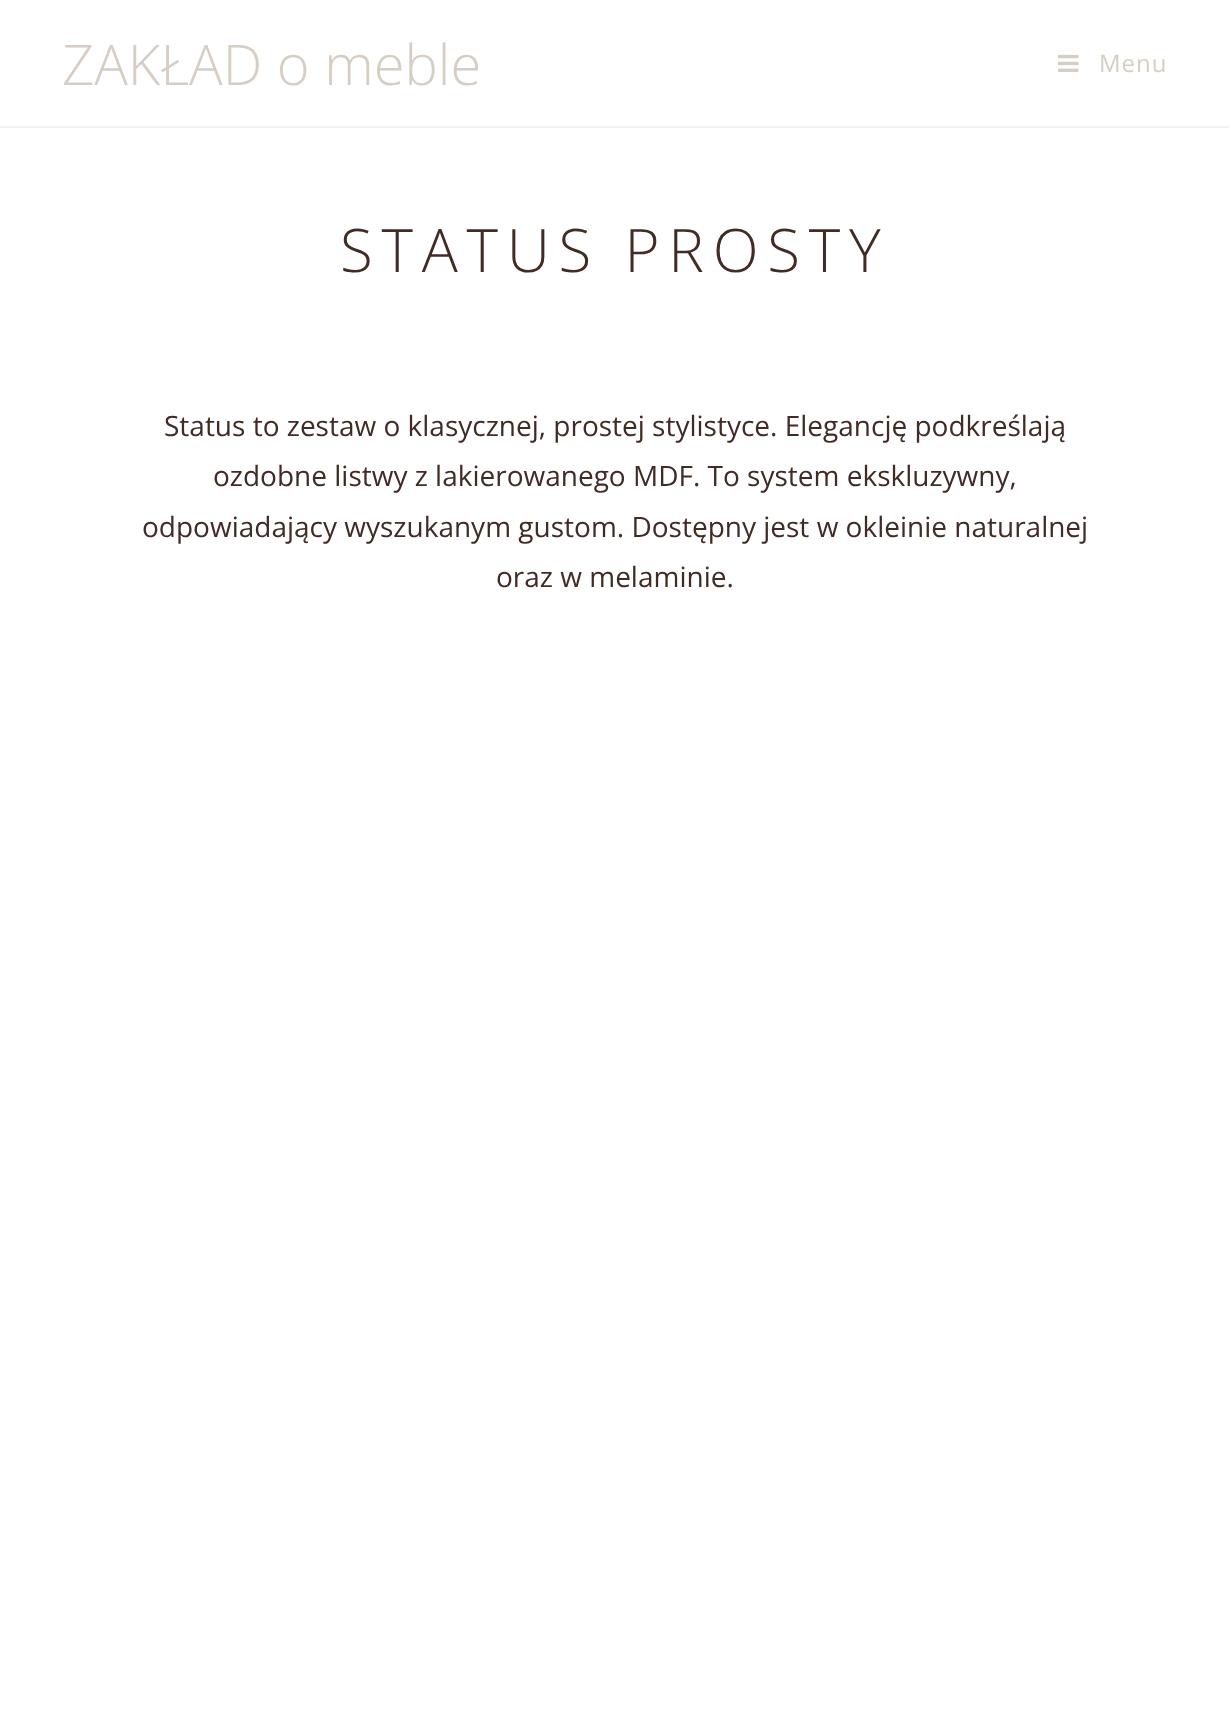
<!DOCTYPE html>
<meta charset="utf-8">
<style>body { margin: 0 } canvas { display: block }</style>
<canvas id="canvas" width="1229" height="1734"></canvas>
<script type="module">
  const canvas = document.getElementById("canvas");
  const ctx = canvas.getContext("2d");
  ctx.miterLimit = 4;
  ctx.fontKerning = "normal";
  async function loadImage(src) {
    const img = new Image();
    img.src = src;
    await img.decode();
    return img;
  }

  ctx.fillStyle = "#ffffff";
  ctx.fillRect(0, 0, 1229, 1734);
  ctx.fillStyle = "#f1f1f1";
  ctx.fillRect(0, 126, 1229, 2);
  ctx.font = "300 56px Open Sans";
  ctx.fillStyle = "#d6cdc4";
  ctx.fillText("ZAKŁAD o meble", 62, 85);
  ctx.drawImage(await loadImage("img1.png"), 1058, 54, 21, 18);
  ctx.letterSpacing = "1px";
  ctx.font = "24px Open Sans";
  ctx.fillText("Menu", 1099, 72);
  ctx.letterSpacing = "8.75px";
  ctx.font = "300 60px Open Sans";
  ctx.fillStyle = "#412b24";
  ctx.fillText("STATUS PROSTY", 340, 272);
  ctx.letterSpacing = "0px";
  ctx.font = "28px Open Sans";
  ctx.fillText("Status to zestaw o klasycznej, prostej stylistyce. Elegancję podkreślają", 164, 436);
  ctx.fillText("ozdobne listwy z lakierowanego MDF. To system ekskluzywny,", 213, 486);
  ctx.fillText("odpowiadający wyszukanym gustom. Dostępny jest w okleinie naturalnej", 142, 537);
  ctx.fillText("oraz w melaminie.", 496, 587);
</script>
